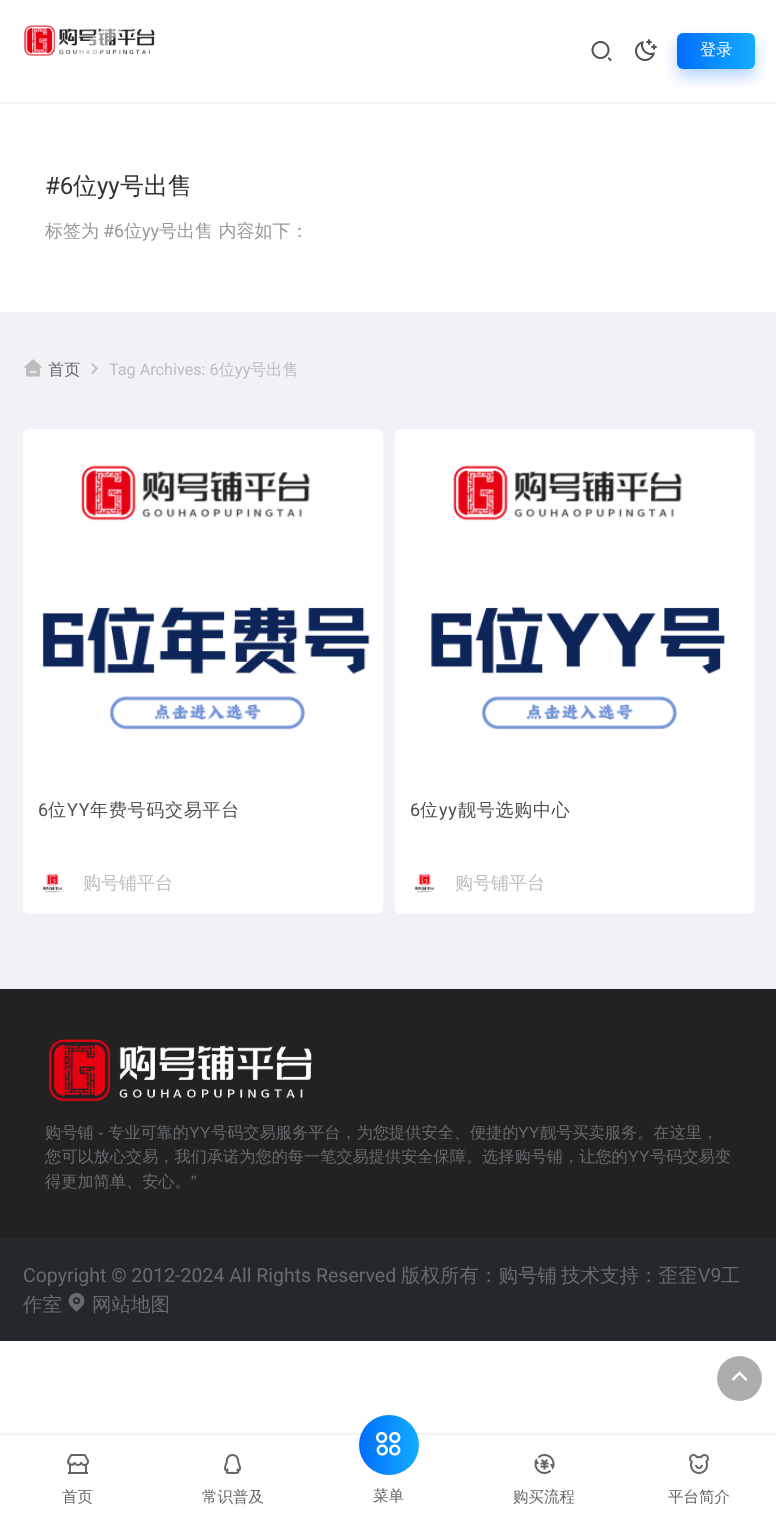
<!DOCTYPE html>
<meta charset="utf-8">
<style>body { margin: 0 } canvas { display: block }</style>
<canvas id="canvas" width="776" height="1520"></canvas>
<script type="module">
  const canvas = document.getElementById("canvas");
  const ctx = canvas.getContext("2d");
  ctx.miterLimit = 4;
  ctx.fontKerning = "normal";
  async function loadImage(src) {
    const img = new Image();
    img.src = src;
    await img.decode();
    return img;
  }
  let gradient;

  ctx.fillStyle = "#ffffff";
  ctx.fillRect(0, 0, 776, 1520);
  ctx.fillStyle = "#f0f2f5";
  ctx.fillRect(0, 312, 776, 677);
  ctx.drawImage(await loadImage("img1.png"), 24, 25, 131, 31);
  ctx.fillStyle = "rgba(255, 255, 255, 0.5)";
  ctx.beginPath();
  ctx.moveTo(43, 87);
  ctx.lineTo(168, -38);
  ctx.lineTo(179, -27);
  ctx.lineTo(54, 98);
  ctx.closePath();
  ctx.fill();
  ctx.drawImage(await loadImage("img2.png"), 591, 41, 21, 21);
  ctx.fillStyle = "rgba(16, 110, 253, 0.3)";
  ctx.filter = "blur(7.5px)";
  ctx.beginPath();
  ctx.roundRect(677, 41, 78, 36, 6);
  ctx.fill();
  ctx.filter = "none";
  ctx.drawImage(await loadImage("img3.png"), 635, 39, 22, 22);
  gradient = ctx.createLinearGradient(677, 51, 755, 51);
  gradient.addColorStop(0, "#006eff");
  gradient.addColorStop(1, "#13adff");
  ctx.fillStyle = gradient;
  ctx.beginPath();
  ctx.roundRect(677, 33, 78, 36, 6);
  ctx.fill();
  ctx.font = "500 16.2px WenQuanYi Zen Hei";
  ctx.fillStyle = "#ffffff";
  ctx.fillText("登录", 700, 55);
  ctx.fillStyle = "#f4f4f4";
  ctx.fillRect(0, 102, 776, 2);
  ctx.font = "24px Roboto";
  ctx.fillStyle = "#333333";
  ctx.fillText("#6", 45, 194);
  ctx.font = "500 24px WenQuanYi Zen Hei";
  ctx.fillText("位", 73, 194);
  ctx.font = "24px Roboto";
  ctx.fillText("yy", 97, 194);
  ctx.font = "500 24px WenQuanYi Zen Hei";
  ctx.fillText("号出售", 120, 194);
  ctx.font = "500 18px WenQuanYi Zen Hei";
  ctx.fillStyle = "#999999";
  ctx.fillText("标签为", 45, 237);
  ctx.font = "18px Roboto";
  ctx.fillText("#6", 103, 237);
  ctx.font = "500 18px WenQuanYi Zen Hei";
  ctx.fillText("位", 124, 237);
  ctx.font = "18px Roboto";
  ctx.fillText("yy", 142, 237);
  ctx.font = "500 18px WenQuanYi Zen Hei";
  ctx.fillText("号出售 内容如下：", 159, 237);
  ctx.drawImage(await loadImage("img4.png"), 23, 359, 20, 18);
  ctx.font = "500 16.2px WenQuanYi Zen Hei";
  ctx.fillStyle = "#666666";
  ctx.fillText("首页", 48, 375);
  ctx.drawImage(await loadImage("img5.png"), 91, 363, 7, 11);
  ctx.font = "16.2px Roboto";
  ctx.fillStyle = "#bdbdbd";
  ctx.fillText("Tag Archives: 6", 109, 375);
  ctx.font = "500 16.2px WenQuanYi Zen Hei";
  ctx.fillText("位", 219, 375);
  ctx.font = "16.2px Roboto";
  ctx.fillText("yy", 235, 375);
  ctx.font = "500 16.2px WenQuanYi Zen Hei";
  ctx.fillText("号出售", 250, 375);
  ctx.fillStyle = "#ffffff";
  ctx.beginPath();
  ctx.roundRect(23, 429, 360, 485, 6);
  ctx.fill();
  ctx.drawImage(await loadImage("img6.png"), 42, 465, 328, 265);
  ctx.letterSpacing = "0.75px";
  ctx.font = "18px Roboto";
  ctx.fillStyle = "#505050";
  ctx.fillText("6", 38, 816);
  ctx.font = "500 18px WenQuanYi Zen Hei";
  ctx.fillText("位", 48, 816);
  ctx.font = "18px Roboto";
  ctx.fillText("YY", 67, 816);
  ctx.font = "500 18px WenQuanYi Zen Hei";
  ctx.fillText("年费号码交易平台", 90, 816);
  ctx.drawImage(await loadImage("img7.png"), 43, 874, 19, 19);
  ctx.letterSpacing = "0px";
  ctx.fillStyle = "#bdbdbd";
  ctx.fillText("购号铺平台", 83, 889);
  ctx.fillStyle = "#ffffff";
  ctx.beginPath();
  ctx.roundRect(395, 429, 360, 485, 6);
  ctx.fill();
  ctx.drawImage(await loadImage("img8.png"), 431, 465, 294, 265);
  ctx.letterSpacing = "0.75px";
  ctx.font = "18px Roboto";
  ctx.fillStyle = "#505050";
  ctx.fillText("6", 410, 816);
  ctx.font = "500 18px WenQuanYi Zen Hei";
  ctx.fillText("位", 420, 816);
  ctx.font = "18px Roboto";
  ctx.fillText("yy", 439, 816);
  ctx.font = "500 18px WenQuanYi Zen Hei";
  ctx.fillText("靓号选购中心", 458, 816);
  ctx.drawImage(await loadImage("img9.png"), 415, 874, 19, 19);
  ctx.letterSpacing = "0px";
  ctx.fillStyle = "#bdbdbd";
  ctx.fillText("购号铺平台", 455, 889);
  ctx.fillStyle = "#222222";
  ctx.fillRect(0, 989, 776, 249);
  ctx.drawImage(await loadImage("img10.png"), 49, 1039, 263, 63);
  ctx.font = "500 16.2px WenQuanYi Zen Hei";
  ctx.fillStyle = "#676b6f";
  ctx.fillText("购号铺", 45, 1138);
  ctx.font = "16.2px Liberation Sans";
  ctx.fillText("-", 98, 1138);
  ctx.font = "500 16.2px WenQuanYi Zen Hei";
  ctx.fillText("专业可靠的", 108, 1138);
  ctx.font = "16.2px Liberation Sans";
  ctx.fillText("YY", 189, 1138);
  ctx.font = "500 16.2px WenQuanYi Zen Hei";
  ctx.fillText("号码交易服务平台，为您提供安全、便捷的", 211, 1138);
  ctx.font = "16.2px Liberation Sans";
  ctx.fillText("YY", 518, 1138);
  ctx.font = "500 16.2px WenQuanYi Zen Hei";
  ctx.fillText("靓号买卖服务。在这里，", 540, 1138);
  ctx.fillText("您可以放心交易，我们承诺为您的每一笔交易提供安全保障。选择购号铺，让您的", 45, 1162);
  ctx.font = "16.2px Liberation Sans";
  ctx.fillText("YY", 628, 1162);
  ctx.font = "500 16.2px WenQuanYi Zen Hei";
  ctx.fillText("号码交易变", 650, 1162);
  ctx.fillText("得更加简单、安心。", 45, 1187);
  ctx.font = "16.2px Liberation Sans";
  ctx.fillText("”", 191, 1187);
  ctx.fillStyle = "#25282a";
  ctx.fillRect(0, 1238, 776, 103);
  ctx.font = "19.5px Roboto";
  ctx.fillStyle = "#676b6f";
  ctx.fillText("Copyright © 2012-2024 All Rights Reserved", 23, 1282);
  ctx.font = "500 19.5px WenQuanYi Zen Hei";
  ctx.fillText("版权所有：购号铺", 401, 1282);
  ctx.fillText("技术支持：歪歪", 561, 1282);
  ctx.font = "19.5px Roboto";
  ctx.fillText("V9", 698, 1282);
  ctx.font = "500 19.5px WenQuanYi Zen Hei";
  ctx.fillText("工", 721, 1282);
  ctx.fillText("作室", 23, 1311);
  ctx.drawImage(await loadImage("img11.png"), 68, 1292, 17, 20);
  ctx.fillText("网站地图", 92, 1311);
  ctx.fillStyle = "rgba(0, 0, 0, 0.32)";
  ctx.beginPath();
  ctx.arc(739.5, 1378.5, 22.5, 0, Math.PI * 2);
  ctx.fill();
  ctx.drawImage(await loadImage("img12.png"), 731, 1371, 17, 10);
  ctx.fillStyle = "#f4f4f4";
  ctx.fillRect(0, 1433, 776, 2);
  ctx.drawImage(await loadImage("img13.png"), 67, 1454, 22, 20);
  ctx.font = "500 15.5px WenQuanYi Zen Hei";
  ctx.fillStyle = "#666666";
  ctx.fillText("首页", 62, 1502);
  ctx.drawImage(await loadImage("img14.png"), 224, 1454, 17, 20);
  ctx.fillText("常识普及", 202, 1502);
  gradient = ctx.createLinearGradient(359, 1445, 419, 1445);
  gradient.addColorStop(0, "#006eff");
  gradient.addColorStop(1, "#13adff");
  ctx.fillStyle = gradient;
  ctx.beginPath();
  ctx.arc(389, 1445, 30, 0, Math.PI * 2);
  ctx.fill();
  ctx.drawImage(await loadImage("img15.png"), 376, 1431, 25, 25);
  ctx.fillStyle = "#666666";
  ctx.fillText("菜单", 373, 1501);
  ctx.drawImage(await loadImage("img16.png"), 534, 1454, 21, 20);
  ctx.fillText("购买流程", 513, 1502);
  ctx.drawImage(await loadImage("img17.png"), 689, 1454, 20, 20);
  ctx.fillText("平台简介", 668, 1502);
</script>
